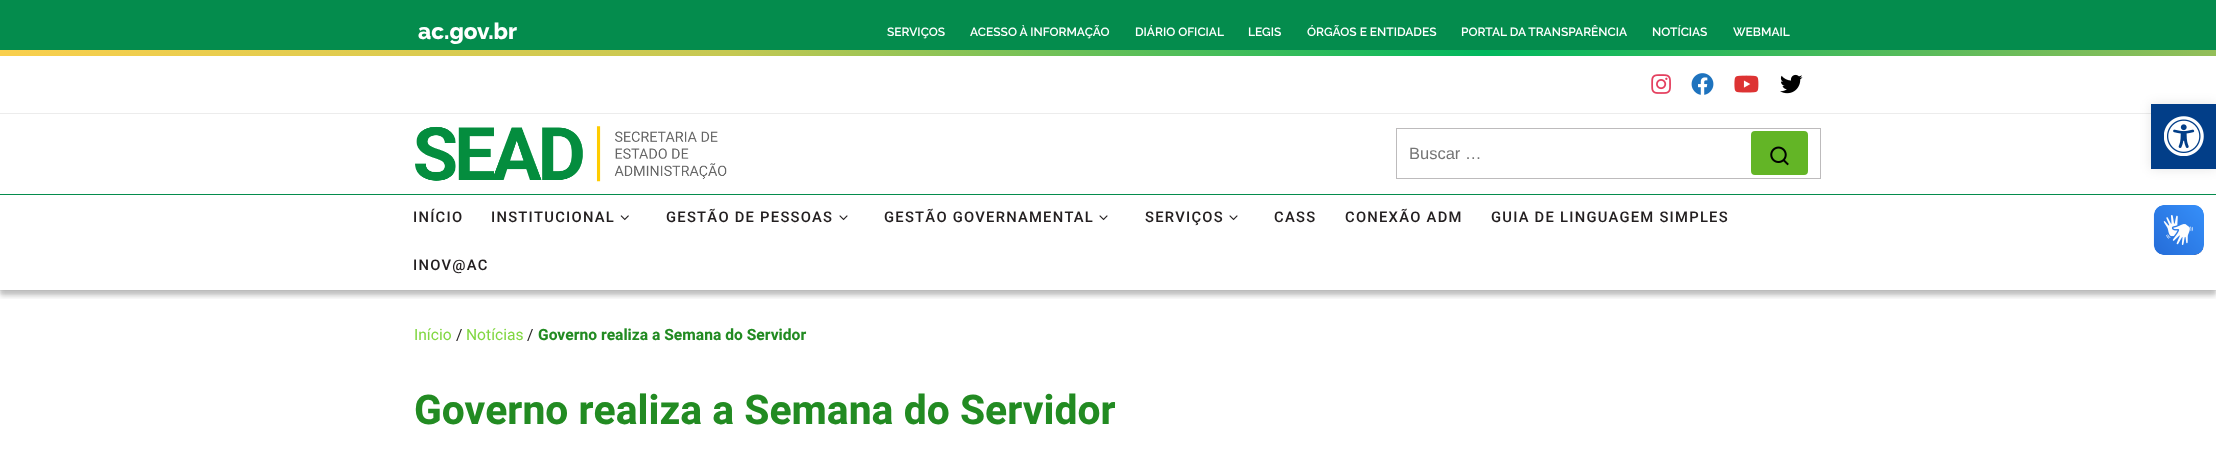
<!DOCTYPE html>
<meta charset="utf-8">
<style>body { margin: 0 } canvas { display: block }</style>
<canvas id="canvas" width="2216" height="458"></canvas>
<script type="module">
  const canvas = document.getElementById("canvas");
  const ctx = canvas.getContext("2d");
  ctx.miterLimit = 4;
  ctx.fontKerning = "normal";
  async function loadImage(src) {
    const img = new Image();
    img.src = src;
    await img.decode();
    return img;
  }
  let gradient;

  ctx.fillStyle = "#ffffff";
  ctx.fillRect(0, 0, 2216, 458);
  ctx.fillStyle = "#048c4d";
  ctx.fillRect(0, 0, 2216, 50);
  ctx.font = "800 22.5px Raleway";
  ctx.fillStyle = "#ffffff";
  ctx.fillText("ac.gov.br", 418, 39);
  ctx.font = "600 12px Raleway";
  ctx.fillText("SERVIÇOS", 887, 36);
  ctx.fillText("ACESSO À INFORMAÇÃO", 970, 36);
  ctx.fillText("DIÁRIO OFICIAL", 1135, 36);
  ctx.fillText("LEGIS", 1248, 36);
  ctx.fillText("ÓRGÃOS E ENTIDADES", 1307, 36);
  ctx.fillText("PORTAL DA TRANSPARÊNCIA", 1461, 36);
  ctx.fillText("NOTÍCIAS", 1652, 36);
  ctx.fillText("WEBMAIL", 1733, 36);
  gradient = ctx.createLinearGradient(0, 53, 2216, 53);
  gradient.addColorStop(0, "#f9cf4d");
  gradient.addColorStop(0.33, "#c5c852");
  gradient.addColorStop(0.67, "#00b75e");
  gradient.addColorStop(1, "#94be59");
  ctx.fillStyle = gradient;
  ctx.fillRect(0, 50, 2216, 6);
  ctx.save();
  ctx.beginPath();
  ctx.rect(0, 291, 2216, 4);
  ctx.clip();
  ctx.fillStyle = "rgba(102, 102, 102, 0.08)";
  ctx.filter = "blur(1px)";
  ctx.beginPath();
  ctx.rect(0, 65, 2216, 229);
  ctx.fill();
  ctx.filter = "none";
  ctx.restore();
  ctx.fillStyle = "#ececec";
  ctx.fillRect(0, 290, 2216, 1);
  ctx.fillRect(0, 113, 2151, 1);
  ctx.drawImage(await loadImage("img1.png"), 1651, 74, 20, 20);
  ctx.drawImage(await loadImage("img2.png"), 1691, 73, 23, 22);
  ctx.drawImage(await loadImage("img3.png"), 1734, 75, 25, 18);
  ctx.drawImage(await loadImage("img4.png"), 1780, 74, 23, 20);
  ctx.save();
  ctx.beginPath();
  ctx.rect(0, 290, 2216, 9);
  ctx.clip();
  ctx.fillStyle = "rgba(0, 0, 0, 0.2)";
  ctx.filter = "blur(2.5px)";
  ctx.beginPath();
  ctx.rect(0, 120, 2216, 176);
  ctx.fill();
  ctx.filter = "none";
  ctx.restore();
  ctx.drawImage(await loadImage("img5.png"), 415, 126, 312, 56);
  ctx.strokeStyle = "#bdbbbc";
  ctx.strokeRect(1396.5, 128.5, 424, 50);
  ctx.font = "16.5px Liberation Sans";
  ctx.fillStyle = "#757575";
  ctx.fillText("Buscar …", 1409, 159);
  ctx.fillStyle = "#63b526";
  ctx.beginPath();
  ctx.roundRect(1752.5, 132.5, 54, 41, 2.5);
  ctx.fill();
  ctx.strokeStyle = "#63b526";
  ctx.lineWidth = 3;
  ctx.stroke();
  ctx.drawImage(await loadImage("img6.png"), 1770, 146, 19, 20);
  ctx.fillStyle = "#048c4d";
  ctx.fillRect(0, 194, 2216, 1);
  ctx.letterSpacing = "1.25px";
  ctx.font = "500 14.75px Heebo";
  ctx.fillStyle = "#231f20";
  ctx.fillText("INÍCIO", 413, 222);
  ctx.fillText("INSTITUCIONAL", 491, 222);
  ctx.drawImage(await loadImage("img7.png"), 620, 215, 9, 6);
  ctx.fillText("GESTÃO DE PESSOAS", 666, 222);
  ctx.drawImage(await loadImage("img8.png"), 839, 215, 9, 6);
  ctx.fillText("GESTÃO GOVERNAMENTAL", 884, 222);
  ctx.drawImage(await loadImage("img8.png"), 1099, 215, 9, 6);
  ctx.fillText("SERVIÇOS", 1145, 222);
  ctx.drawImage(await loadImage("img8.png"), 1229, 215, 9, 6);
  ctx.fillText("CASS", 1274, 222);
  ctx.fillText("CONEXÃO ADM", 1345, 222);
  ctx.fillText("GUIA DE LINGUAGEM SIMPLES", 1491, 222);
  ctx.fillText("INOV@AC", 413, 270);
  ctx.letterSpacing = "0px";
  ctx.font = "15.6px Heebo";
  ctx.fillStyle = "#81d742";
  ctx.fillText("Início", 414, 340);
  ctx.fillStyle = "#231f20";
  ctx.fillText("/", 456, 340);
  ctx.fillStyle = "#81d742";
  ctx.fillText("Notícias", 466, 340);
  ctx.fillStyle = "#231f20";
  ctx.fillText("/", 527, 340);
  ctx.font = "bold 15.6px Heebo";
  ctx.fillStyle = "#228b22";
  ctx.fillText("Governo realiza a Semana do Servidor", 538, 340);
  ctx.font = "bold 40.8px Heebo";
  ctx.fillText("Governo realiza a Semana do Servidor", 414, 424);
  ctx.fillStyle = "rgba(0, 0, 0, 0.1)";
  ctx.filter = "blur(6px)";
  ctx.beginPath();
  ctx.rect(2151, 104, 65, 65);
  ctx.fill();
  ctx.filter = "none";
  ctx.fillStyle = "#023e88";
  ctx.fillRect(2151, 104, 65, 65);
  ctx.drawImage(await loadImage("img9.png"), 2164, 116, 40, 40);
  ctx.drawImage(await loadImage("img10.png"), 2153, 205, 51, 50);
  ctx.drawImage(await loadImage("img11.png"), 2154, 205, 50, 50);
</script>
